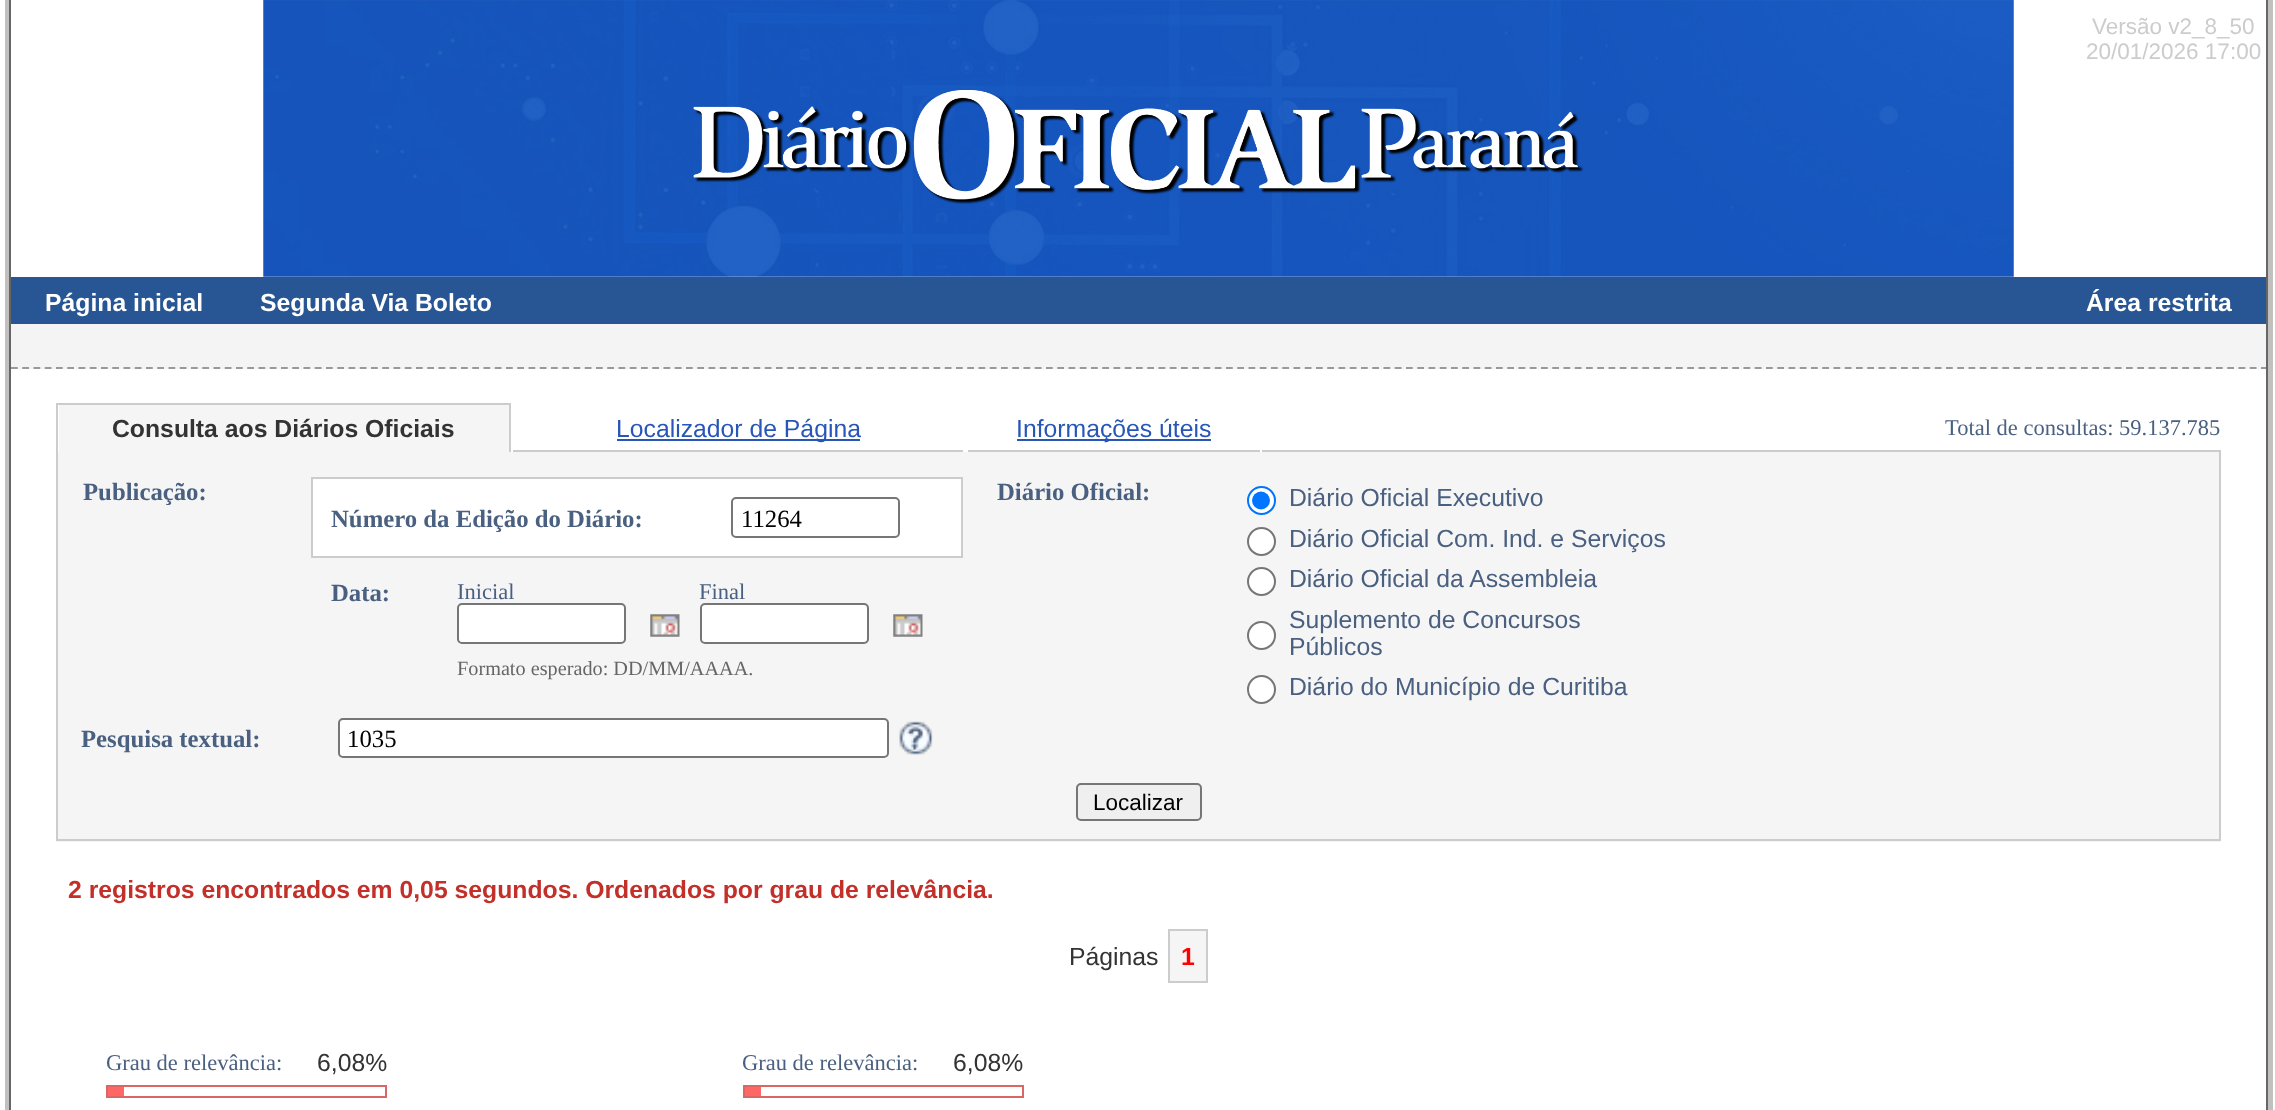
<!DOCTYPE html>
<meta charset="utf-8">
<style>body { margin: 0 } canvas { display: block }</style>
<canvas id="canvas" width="2275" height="1110"></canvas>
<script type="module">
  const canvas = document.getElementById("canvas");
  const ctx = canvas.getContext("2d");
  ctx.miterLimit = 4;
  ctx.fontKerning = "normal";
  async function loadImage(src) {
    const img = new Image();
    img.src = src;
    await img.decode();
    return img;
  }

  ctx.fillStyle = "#ffffff";
  ctx.fillRect(0, 0, 2275, 1110);
  ctx.fillStyle = "#c2bfbf";
  ctx.fillRect(5, 0, 4, 1110);
  ctx.fillStyle = "#666666";
  ctx.fillRect(9, 0, 2, 1110);
  ctx.drawImage(await loadImage("img1.png"), 263, 0, 1751, 277);
  ctx.font = "22.5px Liberation Sans";
  ctx.fillStyle = "#cccccc";
  ctx.fillText("Versão v2_8_50", 2092, 34);
  ctx.fillText("20/01/2026 17:00", 2086, 59);
  ctx.fillStyle = "#285694";
  ctx.fillRect(11, 277, 2255, 47);
  ctx.font = "bold 24.75px Liberation Sans";
  ctx.fillStyle = "#ffffff";
  ctx.fillText("Página inicial", 45, 311);
  ctx.fillText("Segunda Via Boleto", 260, 311);
  ctx.fillText("Área restrita", 2086, 311);
  ctx.fillStyle = "#f4f4f4";
  ctx.fillRect(11, 324, 2255, 45);
  ctx.beginPath();
  ctx.moveTo(11, 368);
  ctx.lineTo(2266, 368);
  ctx.strokeStyle = "#999999";
  ctx.lineWidth = 2.2;
  ctx.setLineDash([6.75, 4.5]);
  ctx.stroke();
  ctx.fillStyle = "#cccccc";
  ctx.fillRect(56, 403, 455, 2);
  ctx.fillRect(56, 405, 2, 47);
  ctx.fillStyle = "#f5f5f5";
  ctx.fillRect(59, 405, 450, 47);
  ctx.fillStyle = "#333333";
  ctx.fillText("Consulta aos Diários Oficiais", 112, 437);
  ctx.fillStyle = "#cccccc";
  ctx.fillRect(509, 405, 2, 47);
  ctx.fillStyle = "#2756b7";
  ctx.fillRect(617, 439, 243, 2);
  ctx.font = "24.75px Liberation Sans";
  ctx.fillText("Localizador de Página", 616, 437);
  ctx.fillRect(1017, 439, 194, 2);
  ctx.fillText("Informações úteis", 1016, 437);
  ctx.font = "22.5px Liberation Serif";
  ctx.fillStyle = "#4a6080";
  ctx.fillText("Total de consultas: 59.137.785", 1945, 435);
  ctx.fillStyle = "#cccccc";
  ctx.fillRect(513, 450, 450, 2);
  ctx.fillRect(968, 450, 292, 2);
  ctx.fillRect(1262, 450, 959, 2);
  ctx.fillStyle = "#f5f5f5";
  ctx.fillRect(56, 452, 2165, 390);
  ctx.fillStyle = "#cccccc";
  ctx.fillRect(56, 452, 2, 387);
  ctx.font = "bold 24.75px Liberation Serif";
  ctx.fillStyle = "#4a6080";
  ctx.fillText("Publicação:", 83, 500);
  ctx.fillStyle = "#ffffff";
  ctx.beginPath();
  ctx.rect(312, 478, 650, 79);
  ctx.fill();
  ctx.strokeStyle = "#cccccc";
  ctx.lineWidth = 2;
  ctx.setLineDash([]);
  ctx.stroke();
  ctx.fillStyle = "#4a6080";
  ctx.fillText("Número da Edição do Diário:", 331, 527);
  ctx.beginPath();
  ctx.roundRect(732, 498, 167, 39, 4);
  ctx.strokeStyle = "#767676";
  ctx.stroke();
  ctx.font = "24.75px Liberation Serif";
  ctx.fillStyle = "#000000";
  ctx.fillText("11264", 741, 527);
  ctx.font = "bold 24.75px Liberation Serif";
  ctx.fillStyle = "#4a6080";
  ctx.fillText("Data:", 331, 601);
  ctx.font = "22.5px Liberation Serif";
  ctx.fillText("Inicial", 457, 599);
  ctx.fillStyle = "#ffffff";
  ctx.beginPath();
  ctx.roundRect(458, 604, 167, 39, 4);
  ctx.fill();
  ctx.stroke();
  ctx.fillStyle = "#4a6080";
  ctx.fillText("Final", 699, 599);
  ctx.fillStyle = "#ffffff";
  ctx.beginPath();
  ctx.roundRect(701, 604, 167, 39, 4);
  ctx.fill();
  ctx.stroke();
  ctx.drawImage(await loadImage("img2.png"), 650, 614, 30, 23);
  ctx.drawImage(await loadImage("img2.png"), 893, 614, 30, 23);
  ctx.font = "20.25px Liberation Serif";
  ctx.fillStyle = "#666666";
  ctx.fillText("Formato esperado: DD/MM/AAAA.", 457, 675);
  ctx.font = "bold 24.75px Liberation Serif";
  ctx.fillStyle = "#4a6080";
  ctx.fillText("Pesquisa textual:", 81, 747);
  ctx.fillStyle = "#ffffff";
  ctx.beginPath();
  ctx.roundRect(339, 719, 549, 38, 4);
  ctx.fill();
  ctx.stroke();
  ctx.font = "24.75px Liberation Serif";
  ctx.fillStyle = "#000000";
  ctx.fillText("1035", 347, 747);
  ctx.drawImage(await loadImage("img3.png"), 899, 721, 34, 34);
  ctx.font = "bold 24.75px Liberation Serif";
  ctx.fillStyle = "#4a6080";
  ctx.fillText("Diário Oficial:", 997, 500);
  ctx.fillStyle = "#ffffff";
  ctx.beginPath();
  ctx.arc(1261.5, 500.5, 13.5, 0, Math.PI * 2);
  ctx.fill();
  ctx.strokeStyle = "#0075ff";
  ctx.stroke();
  ctx.fillStyle = "#0075ff";
  ctx.beginPath();
  ctx.arc(1261, 500.5, 9, 0, Math.PI * 2);
  ctx.fill();
  ctx.font = "24.75px Liberation Sans";
  ctx.fillStyle = "#4a6080";
  ctx.fillText("Diário Oficial Executivo", 1289, 506);
  ctx.fillStyle = "#ffffff";
  ctx.beginPath();
  ctx.arc(1261.5, 541.5, 13.5, 0, Math.PI * 2);
  ctx.fill();
  ctx.strokeStyle = "#767676";
  ctx.stroke();
  ctx.fillStyle = "#4a6080";
  ctx.fillText("Diário Oficial Com. Ind. e Serviços", 1289, 547);
  ctx.fillStyle = "#ffffff";
  ctx.beginPath();
  ctx.arc(1261.5, 581.5, 13.5, 0, Math.PI * 2);
  ctx.fill();
  ctx.stroke();
  ctx.fillStyle = "#4a6080";
  ctx.fillText("Diário Oficial da Assembleia", 1289, 587);
  ctx.fillStyle = "#ffffff";
  ctx.beginPath();
  ctx.arc(1261.5, 635.5, 13.5, 0, Math.PI * 2);
  ctx.fill();
  ctx.stroke();
  ctx.fillStyle = "#4a6080";
  ctx.fillText("Suplemento de Concursos", 1289, 628);
  ctx.fillText("Públicos", 1289, 655);
  ctx.fillStyle = "#ffffff";
  ctx.beginPath();
  ctx.arc(1261.5, 689.5, 13.5, 0, Math.PI * 2);
  ctx.fill();
  ctx.stroke();
  ctx.fillStyle = "#4a6080";
  ctx.fillText("Diário do Município de Curitiba", 1289, 695);
  ctx.fillStyle = "#efefef";
  ctx.beginPath();
  ctx.roundRect(1077, 784, 124, 36, 4);
  ctx.fill();
  ctx.stroke();
  ctx.font = "22.5px Liberation Sans";
  ctx.fillStyle = "#000000";
  ctx.fillText("Localizar", 1093, 810);
  ctx.fillStyle = "#cccccc";
  ctx.fillRect(2219, 452, 2, 387);
  ctx.fillRect(56, 839, 2165, 2);
  ctx.font = "bold 24.75px Liberation Sans";
  ctx.fillStyle = "#c3302a";
  ctx.fillText("2 registros encontrados em 0,05 segundos. Ordenados por grau de relevância.", 68, 898);
  ctx.font = "24.75px Liberation Sans";
  ctx.fillStyle = "#333333";
  ctx.fillText("Páginas", 1069, 965);
  ctx.fillStyle = "#f5f5f5";
  ctx.beginPath();
  ctx.rect(1169, 930, 38, 52);
  ctx.fill();
  ctx.strokeStyle = "#cccccc";
  ctx.stroke();
  ctx.font = "bold 24.75px Liberation Sans";
  ctx.fillStyle = "#ff0000";
  ctx.fillText("1", 1181, 965);
  ctx.font = "22.5px Liberation Serif";
  ctx.fillStyle = "#4a6080";
  ctx.fillText("Grau de relevância:", 106, 1070);
  ctx.font = "24.75px Liberation Sans";
  ctx.fillStyle = "#333333";
  ctx.fillText("6,08%", 317, 1071);
  ctx.strokeStyle = "#db6666";
  ctx.strokeRect(107, 1086, 279, 11);
  ctx.fillStyle = "#ff6666";
  ctx.fillRect(108, 1087, 16, 9);
  ctx.font = "22.5px Liberation Serif";
  ctx.fillStyle = "#4a6080";
  ctx.fillText("Grau de relevância:", 742, 1070);
  ctx.font = "24.75px Liberation Sans";
  ctx.fillStyle = "#333333";
  ctx.fillText("6,08%", 953, 1071);
  ctx.strokeRect(744, 1086, 279, 11);
  ctx.fillStyle = "#ff6666";
  ctx.fillRect(745, 1087, 16, 9);
  ctx.fillStyle = "#666666";
  ctx.fillRect(2266, 0, 2, 1110);
  ctx.fillStyle = "#c2bfbf";
  ctx.fillRect(2268, 0, 5, 1110);
</script>
